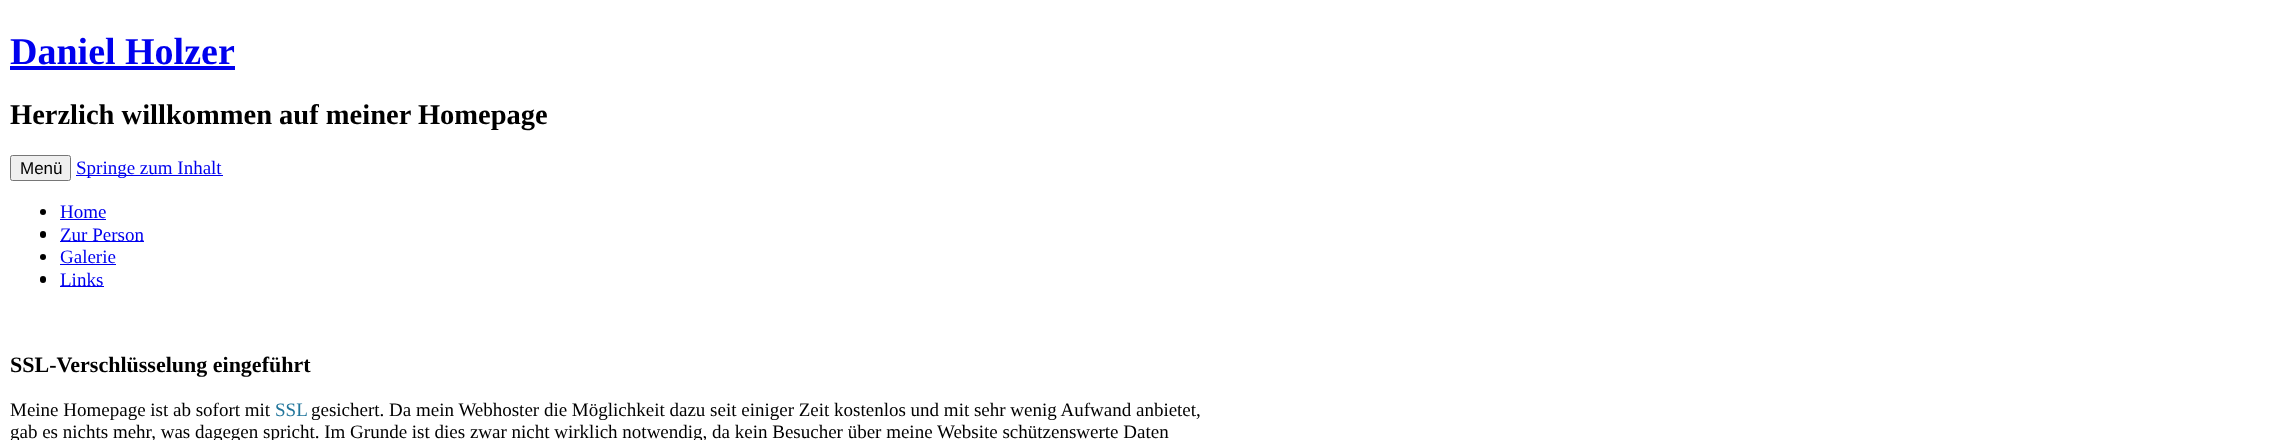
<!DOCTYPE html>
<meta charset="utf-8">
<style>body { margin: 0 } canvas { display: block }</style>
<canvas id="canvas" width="2293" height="440"></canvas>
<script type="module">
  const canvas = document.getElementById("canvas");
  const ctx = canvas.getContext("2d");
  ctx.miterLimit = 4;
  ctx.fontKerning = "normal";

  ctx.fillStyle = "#ffffff";
  ctx.fillRect(0, 0, 2293, 440);
  ctx.font = "bold 38px Liberation Serif";
  ctx.fillStyle = "#0000ee";
  ctx.fillText("Daniel Holzer", 10, 64);
  ctx.fillRect(10, 66, 225, 4);
  ctx.font = "bold 28.5px Liberation Serif";
  ctx.fillStyle = "#000000";
  ctx.fillText("Herzlich willkommen auf meiner Homepage", 10, 124);
  ctx.fillStyle = "#efefef";
  ctx.beginPath();
  ctx.roundRect(10.5, 155.5, 60, 25, 2);
  ctx.fill();
  ctx.strokeStyle = "#767676";
  ctx.stroke();
  ctx.font = "17px Liberation Sans";
  ctx.fillStyle = "#000000";
  ctx.fillText("Menü", 20, 174);
  ctx.fillStyle = "#0000ee";
  ctx.fillRect(76, 175, 147, 1);
  ctx.font = "19px Liberation Serif";
  ctx.fillText("Springe zum Inhalt", 76, 174);
  ctx.fillStyle = "#000000";
  ctx.beginPath();
  ctx.arc(43, 212, 3, 0, Math.PI * 2);
  ctx.fill();
  ctx.fillStyle = "#0000ee";
  ctx.fillText("Home", 60, 218);
  ctx.fillRect(60, 219, 46, 1);
  ctx.fillStyle = "#000000";
  ctx.beginPath();
  ctx.roundRect(40, 231, 6, 7, 3);
  ctx.fill();
  ctx.fillStyle = "#0000ee";
  ctx.fillRect(60, 241, 84, 1);
  ctx.fillText("Zur Person", 60, 241);
  ctx.fillStyle = "#000000";
  ctx.beginPath();
  ctx.arc(43, 257, 3, 0, Math.PI * 2);
  ctx.fill();
  ctx.fillStyle = "#0000ee";
  ctx.fillText("Galerie", 60, 263);
  ctx.fillRect(60, 264, 56, 1);
  ctx.fillStyle = "#000000";
  ctx.beginPath();
  ctx.roundRect(40, 276, 6, 7, 3);
  ctx.fill();
  ctx.fillStyle = "#0000ee";
  ctx.fillRect(60, 286, 44, 1);
  ctx.fillText("Links", 60, 286);
  ctx.font = "bold 22px Liberation Serif";
  ctx.fillStyle = "#000000";
  ctx.fillText("SSL-Verschlüsselung eingeführt", 10, 372);
  ctx.font = "19px Liberation Serif";
  ctx.fillText("Meine Homepage ist ab sofort mit", 10, 416);
  ctx.fillStyle = "#21759b";
  ctx.fillText("SSL", 275, 416);
  ctx.fillStyle = "#000000";
  ctx.fillText("gesichert. Da mein Webhoster die Möglichkeit dazu seit einiger Zeit kostenlos und mit sehr wenig Aufwand anbietet,", 311, 416);
  ctx.fillText("gab es nichts mehr, was dagegen spricht. Im Grunde ist dies zwar nicht wirklich notwendig, da kein Besucher über meine Website schützenswerte Daten", 10, 438);
</script>
